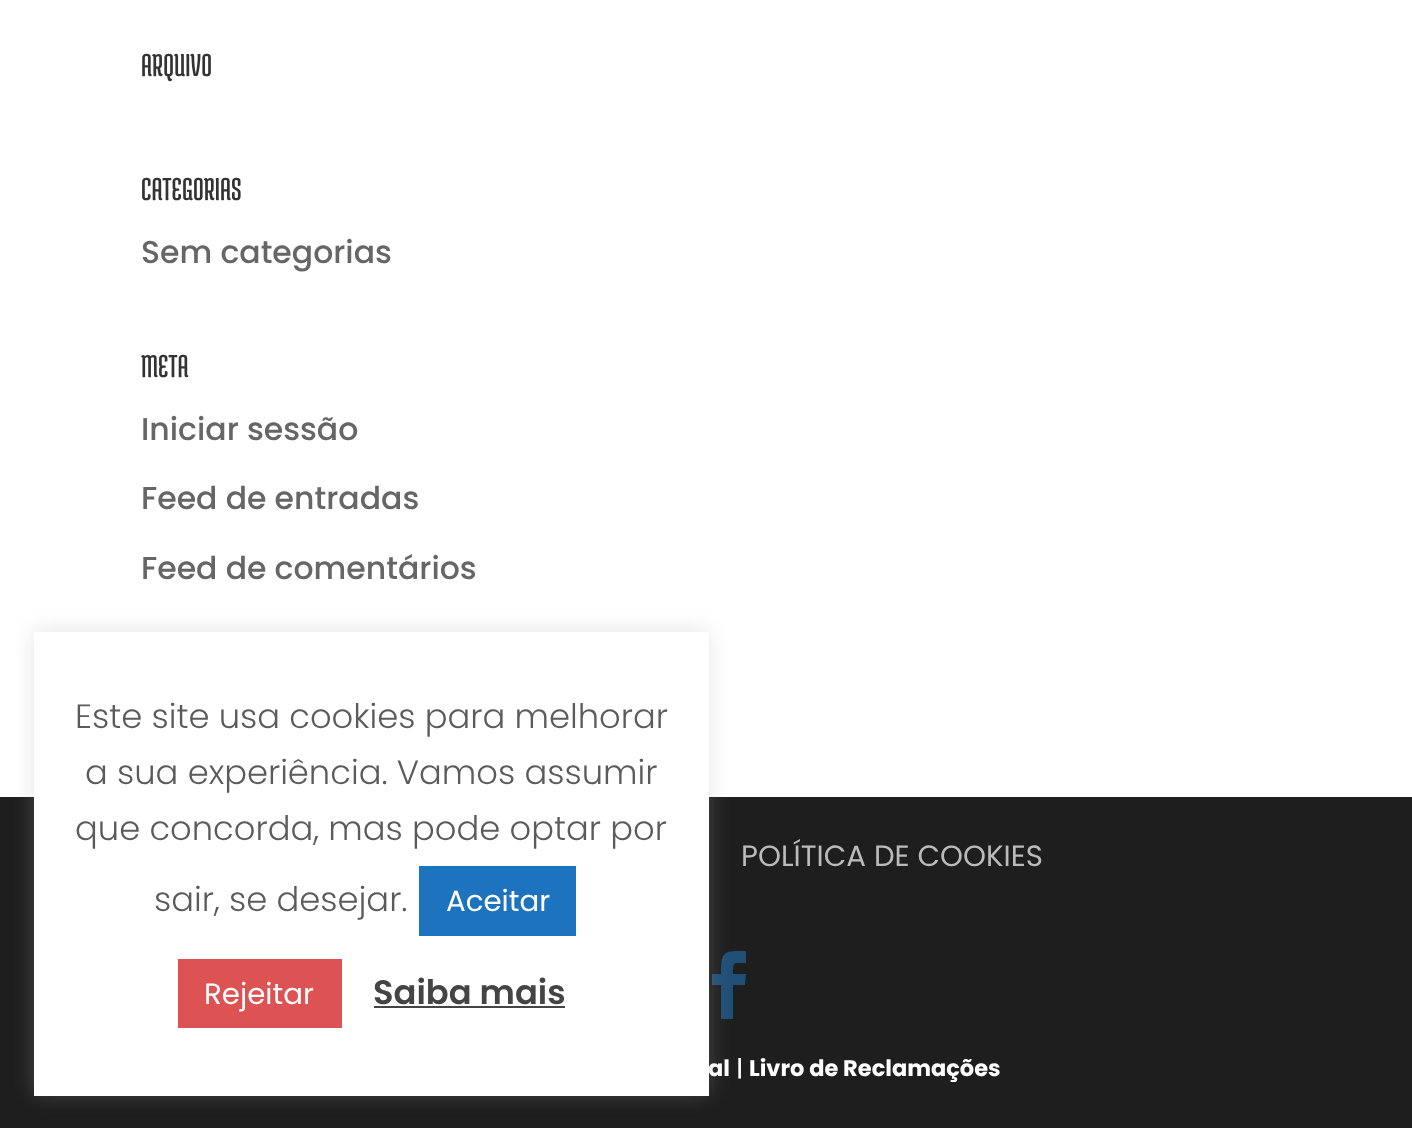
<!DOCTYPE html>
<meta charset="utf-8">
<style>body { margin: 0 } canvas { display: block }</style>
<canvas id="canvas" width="1412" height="1128"></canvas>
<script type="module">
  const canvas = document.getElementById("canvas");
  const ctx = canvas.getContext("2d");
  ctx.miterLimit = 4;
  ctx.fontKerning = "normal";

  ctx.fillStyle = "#ffffff";
  ctx.fillRect(0, 0, 1412, 1128);
  ctx.font = "33.75px Medula One";
  ctx.fillStyle = "#333333";
  ctx.fillText("ARQUIVO", 141, 76);
  ctx.fillText("CATEGORIAS", 141, 200);
  ctx.font = "500 31.5px Poppins";
  ctx.fillStyle = "#666666";
  ctx.fillText("Sem categorias", 141, 263);
  ctx.font = "33.75px Medula One";
  ctx.fillStyle = "#333333";
  ctx.fillText("META", 141, 377);
  ctx.font = "500 31.5px Poppins";
  ctx.fillStyle = "#666666";
  ctx.fillText("Iniciar sessão", 141, 440);
  ctx.fillText("Feed de entradas", 141, 509);
  ctx.fillText("Feed de comentários", 141, 579);
  ctx.fillStyle = "#1e1e1e";
  ctx.fillRect(0, 797, 1412, 331);
  ctx.font = "29.25px Poppins";
  ctx.fillStyle = "#bbbbbb";
  ctx.fillText("POLÍTICA DE COOKIES", 741, 866);
  ctx.fillStyle = "#204f76";
  ctx.beginPath();
  ctx.moveTo(721, 1019);
  ctx.lineTo(733, 1019);
  ctx.lineTo(733, 985);
  ctx.lineTo(745, 985);
  ctx.lineTo(746, 974);
  ctx.lineTo(733, 974);
  ctx.bezierCurveTo(733, 961, 733, 963, 746, 963);
  ctx.lineTo(746, 951);
  ctx.bezierCurveTo(724, 951, 721, 950, 721, 974);
  ctx.lineTo(712, 974);
  ctx.lineTo(712, 985);
  ctx.lineTo(721, 985);
  ctx.closePath();
  ctx.fill();
  ctx.font = "bold 22.5px Poppins";
  ctx.fillStyle = "#ffffff";
  ctx.fillText("al", 708, 1076);
  ctx.font = "500 22.5px Poppins";
  ctx.fillText("|", 736, 1076);
  ctx.font = "bold 22.5px Poppins";
  ctx.fillText("Livro de Reclamações", 749, 1076);
  ctx.fillStyle = "rgba(172, 171, 171, 0.3)";
  ctx.filter = "blur(11px)";
  ctx.beginPath();
  ctx.rect(34, 630, 675, 464);
  ctx.fill();
  ctx.filter = "none";
  ctx.fillStyle = "#ffffff";
  ctx.fillRect(34, 632, 675, 464);
  ctx.font = "300 33.75px Poppins";
  ctx.fillStyle = "#5b5b5b";
  ctx.fillText("Este site usa cookies para melhorar", 75, 728);
  ctx.fillText("a sua experiência. Vamos assumir", 85, 784);
  ctx.fillText("que concorda, mas pode optar por", 75, 840);
  ctx.fillText("sair, se desejar.", 154, 911);
  ctx.fillStyle = "#1e73be";
  ctx.fillRect(419, 866, 157, 70);
  ctx.font = "29.25px Poppins";
  ctx.fillStyle = "#ffffff";
  ctx.fillText("Aceitar", 446, 911);
  ctx.fillStyle = "#dd5252";
  ctx.fillRect(178, 959, 164, 69);
  ctx.fillStyle = "#ffffff";
  ctx.fillText("Rejeitar", 204, 1004);
  ctx.font = "600 33.75px Poppins";
  ctx.fillStyle = "#444444";
  ctx.fillText("Saiba mais", 373, 1004);
  ctx.fillRect(374, 1006, 191, 2);
</script>
